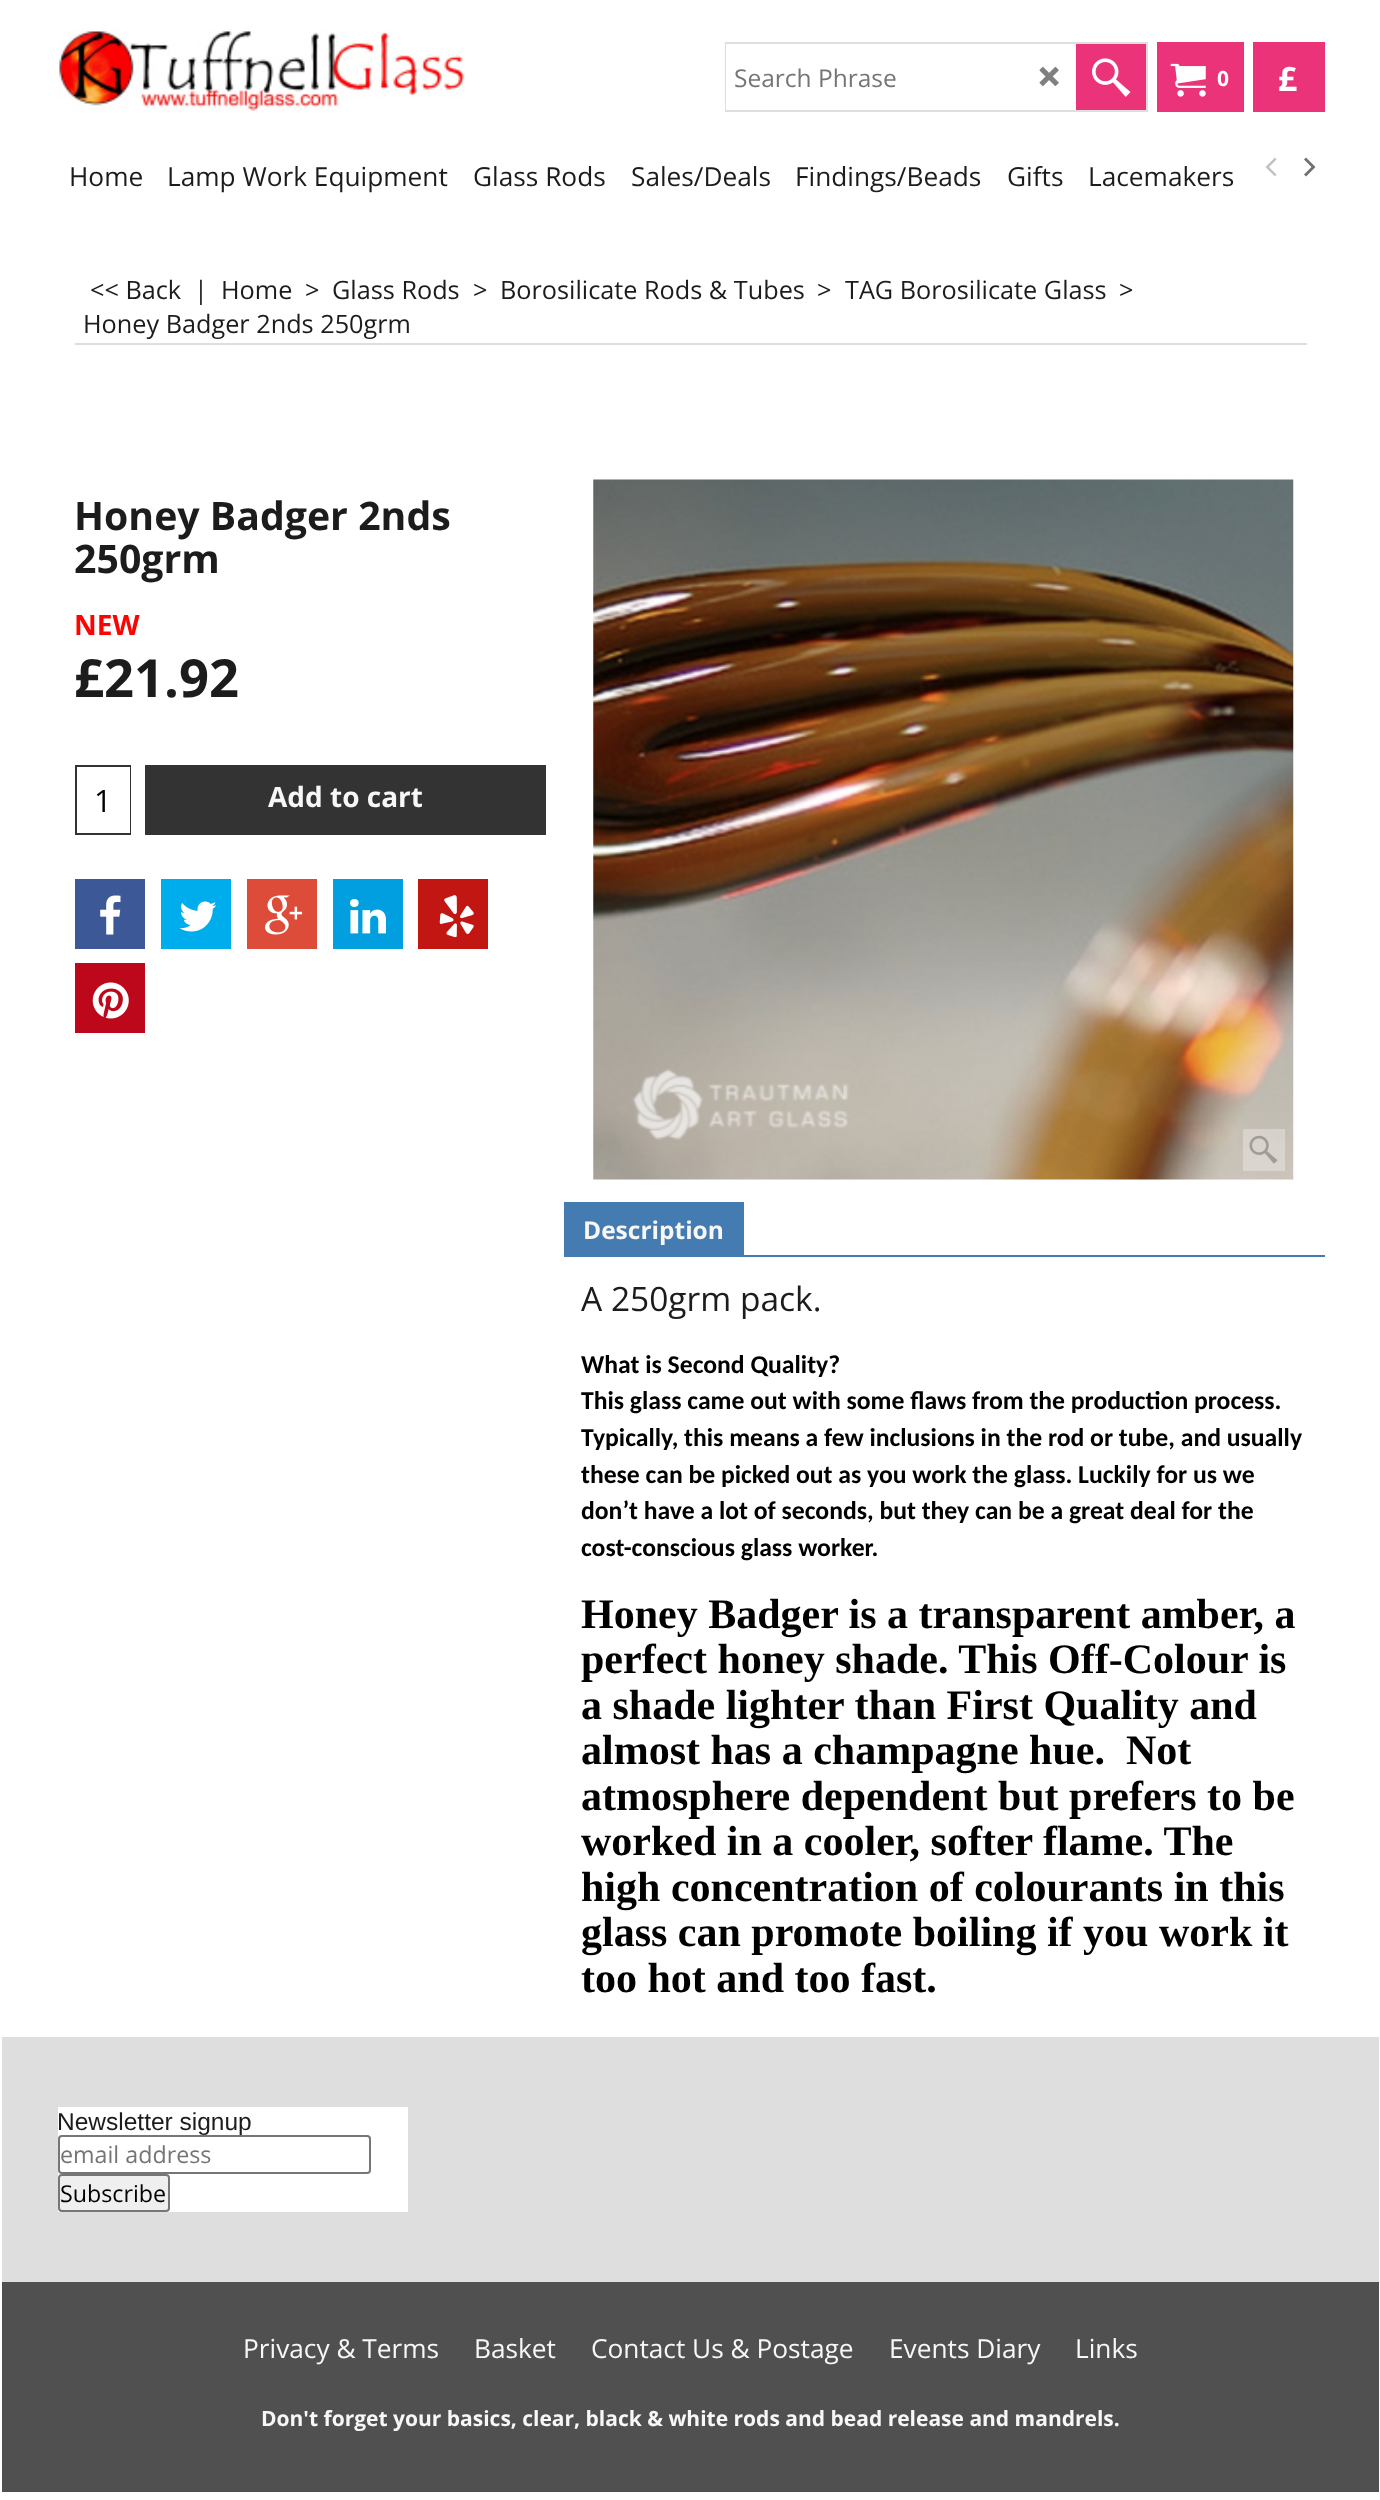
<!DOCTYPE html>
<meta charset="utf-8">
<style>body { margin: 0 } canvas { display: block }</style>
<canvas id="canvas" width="1380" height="2500"></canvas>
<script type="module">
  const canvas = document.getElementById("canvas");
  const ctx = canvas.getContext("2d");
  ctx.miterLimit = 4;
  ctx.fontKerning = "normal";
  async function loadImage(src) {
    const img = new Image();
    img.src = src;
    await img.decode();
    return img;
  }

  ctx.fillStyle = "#ffffff";
  ctx.fillRect(0, 0, 1380, 2500);
  ctx.drawImage(await loadImage("img1.png"), 58, 28, 407, 84);
  ctx.strokeStyle = "#dedede";
  ctx.lineWidth = 2;
  ctx.strokeRect(726, 43, 421, 68);
  ctx.fillRect(726, 44, 1, 66);
  ctx.font = "24.5px Open Sans";
  ctx.fillStyle = "#757575";
  ctx.fillText("Search Phrase", 734, 87);
  ctx.drawImage(await loadImage("img2.png"), 1039, 66, 20, 20);
  ctx.fillStyle = "#eb3379";
  ctx.fillRect(1076, 44, 70, 66);
  ctx.drawImage(await loadImage("img3.png"), 1092, 58, 39, 39);
  ctx.fillRect(1157, 42, 87, 70);
  ctx.drawImage(await loadImage("img4.png"), 1170, 63, 36, 34);
  ctx.font = "bold 21px Open Sans";
  ctx.fillStyle = "#ffffff";
  ctx.fillText("0", 1217, 86);
  ctx.fillStyle = "#eb3379";
  ctx.fillRect(1253, 42, 72, 70);
  ctx.font = "bold 33.5px Open Sans";
  ctx.fillStyle = "#ffffff";
  ctx.fillText("£", 1278, 91);
  ctx.font = "26.25px Open Sans";
  ctx.fillStyle = "#1c1c1c";
  ctx.fillText("Home", 69, 186);
  ctx.fillText("Lamp Work Equipment", 167, 186);
  ctx.fillText("Glass Rods", 473, 186);
  ctx.fillText("Sales/Deals", 631, 186);
  ctx.fillText("Findings/Beads", 795, 186);
  ctx.fillText("Gifts", 1007, 186);
  ctx.fillText("Lacemakers", 1088, 186);
  ctx.fillStyle = "#c2c2c2";
  ctx.beginPath();
  ctx.moveTo(1265.5, 167);
  ctx.lineTo(1275, 176.5);
  ctx.lineTo(1276.5, 174.5);
  ctx.lineTo(1269, 167);
  ctx.lineTo(1276.5, 159.5);
  ctx.lineTo(1275, 157.5);
  ctx.closePath();
  ctx.fill();
  ctx.fillStyle = "#707070";
  ctx.beginPath();
  ctx.moveTo(1315.5, 167);
  ctx.lineTo(1306, 157.5);
  ctx.lineTo(1304, 159.5);
  ctx.lineTo(1311.5, 167);
  ctx.lineTo(1304, 174.5);
  ctx.lineTo(1306, 176.5);
  ctx.closePath();
  ctx.fill();
  ctx.fillStyle = "#dedede";
  ctx.fillRect(75, 343, 1232, 2);
  ctx.font = "25.25px Open Sans";
  ctx.fillStyle = "#1c1c1c";
  ctx.fillText("<< Back", 90, 299);
  ctx.fillText("|", 194, 299);
  ctx.fillText("Home", 221, 299);
  ctx.fillText(">", 305, 299);
  ctx.fillText("Glass Rods", 332, 299);
  ctx.fillText(">", 473, 299);
  ctx.fillText("Borosilicate Rods & Tubes", 500, 299);
  ctx.fillText(">", 817, 299);
  ctx.fillText("TAG Borosilicate Glass", 845, 299);
  ctx.fillText(">", 1119, 299);
  ctx.fillText("Honey Badger 2nds 250grm", 83, 333);
  ctx.font = "bold 39.25px Open Sans";
  ctx.fillText("Honey Badger 2nds", 74, 530);
  ctx.fillText("250grm", 74, 573);
  ctx.font = "bold 28px Open Sans";
  ctx.fillStyle = "#ff0303";
  ctx.fillText("NEW", 74, 635);
  ctx.font = "bold 52.5px Open Sans";
  ctx.fillStyle = "#1c1c1c";
  ctx.fillText("£21.92", 74, 697);
  ctx.fillStyle = "#333333";
  ctx.fillRect(75, 765, 56, 70);
  ctx.fillStyle = "#ffffff";
  ctx.fillRect(77, 767, 53, 66);
  ctx.font = "31px Open Sans";
  ctx.fillStyle = "#000000";
  ctx.fillText("1", 94, 812);
  ctx.fillStyle = "#333333";
  ctx.fillRect(145, 765, 401, 70);
  ctx.font = "bold 28px Open Sans";
  ctx.fillStyle = "#f7f7f7";
  ctx.fillText("Add to cart", 268, 807);
  ctx.fillStyle = "#3c5897";
  ctx.fillRect(75, 879, 70, 70);
  ctx.drawImage(await loadImage("img5.png"), 100, 895, 21, 40);
  ctx.fillStyle = "#00adec";
  ctx.fillRect(161, 879, 70, 70);
  ctx.drawImage(await loadImage("img6.png"), 179, 901, 38, 31);
  ctx.fillStyle = "#dd4c39";
  ctx.fillRect(247, 879, 70, 70);
  ctx.drawImage(await loadImage("img7.png"), 265, 895, 38, 40);
  ctx.fillStyle = "#019fe0";
  ctx.fillRect(333, 879, 70, 70);
  ctx.drawImage(await loadImage("img8.png"), 350, 899, 36, 35);
  ctx.fillStyle = "#c21613";
  ctx.fillRect(418, 879, 70, 70);
  ctx.drawImage(await loadImage("img9.png"), 439, 895, 35, 43);
  ctx.fillStyle = "#bd081c";
  ctx.fillRect(75, 963, 70, 70);
  ctx.drawImage(await loadImage("img10.png"), 92, 982, 37, 37);
  ctx.drawImage(await loadImage("img11.png"), 593, 479, 701, 701);
  ctx.fillStyle = "rgba(255, 255, 255, 0.3)";
  ctx.fillRect(1243, 1129, 42, 42);
  ctx.drawImage(await loadImage("img12.png"), 1249, 1135, 29, 29);
  ctx.fillStyle = "#447bb0";
  ctx.fillRect(564, 1202, 180, 55);
  ctx.font = "bold 24.5px Open Sans";
  ctx.fillStyle = "#f7f7f7";
  ctx.fillText("Description", 583, 1239);
  ctx.fillStyle = "#447bb0";
  ctx.fillRect(744, 1255, 581, 2);
  ctx.font = "33.5px Open Sans";
  ctx.fillStyle = "#1c1c1c";
  ctx.fillText("A 250grm pack.", 581, 1311);
  ctx.font = "bold 25.7px Carlito";
  ctx.fillStyle = "#000000";
  ctx.fillText("What is Second Quality?", 581, 1373);
  ctx.fillText("This glass came out with some flaws from the production process.", 581, 1409);
  ctx.fillText("Typically, this means a few inclusions in the rod or tube, and usually", 581, 1446);
  ctx.fillText("these can be picked out as you work the glass. Luckily for us we", 581, 1483);
  ctx.fillText("don’t have a lot of seconds, but they can be a great deal for the", 581, 1519);
  ctx.fillText("cost-conscious glass worker.", 581, 1556);
  ctx.font = "bold 42px Liberation Serif";
  ctx.fillText("Honey Badger is a transparent amber, a", 581, 1628);
  ctx.fillText("perfect honey shade. This Off-Colour is", 581, 1673);
  ctx.fillText("a shade lighter than First Quality and", 581, 1719);
  ctx.fillText("almost has a champagne hue.  Not", 581, 1764);
  ctx.fillText("atmosphere dependent but prefers to be", 581, 1810);
  ctx.fillText("worked in a cooler, softer flame. The", 581, 1855);
  ctx.fillText("high concentration of colourants in this", 581, 1901);
  ctx.fillText("glass can promote boiling if you work it", 581, 1946);
  ctx.fillText("too hot and too fast.", 581, 1992);
  ctx.fillStyle = "#dedede";
  ctx.fillRect(2, 2037, 1377, 245);
  ctx.fillStyle = "#ffffff";
  ctx.fillRect(58, 2107, 350, 105);
  ctx.font = "24.5px Liberation Sans";
  ctx.fillStyle = "#1c1c1c";
  ctx.fillText("Newsletter signup", 57, 2130);
  ctx.fillStyle = "#ffffff";
  ctx.beginPath();
  ctx.roundRect(59, 2136, 311, 37, 3);
  ctx.fill();
  ctx.strokeStyle = "#767676";
  ctx.stroke();
  ctx.font = "23.25px Open Sans";
  ctx.fillStyle = "#757575";
  ctx.fillText("email address", 60, 2163);
  ctx.fillStyle = "#efefef";
  ctx.beginPath();
  ctx.roundRect(59, 2175, 110, 36, 3);
  ctx.fill();
  ctx.stroke();
  ctx.fillStyle = "#000000";
  ctx.fillText("Subscribe", 60, 2202);
  ctx.fillStyle = "#505050";
  ctx.fillRect(2, 2282, 1377, 210);
  ctx.font = "26.25px Open Sans";
  ctx.fillStyle = "#f7f7f7";
  ctx.fillText("Privacy & Terms", 243, 2358);
  ctx.fillText("Basket", 474, 2358);
  ctx.fillText("Contact Us & Postage", 591, 2358);
  ctx.fillText("Events Diary", 889, 2358);
  ctx.fillText("Links", 1075, 2358);
  ctx.font = "bold 21px Open Sans";
  ctx.fillText("Don't forget your basics, clear, black & white rods and bead release and mandrels.", 261, 2426);
</script>
